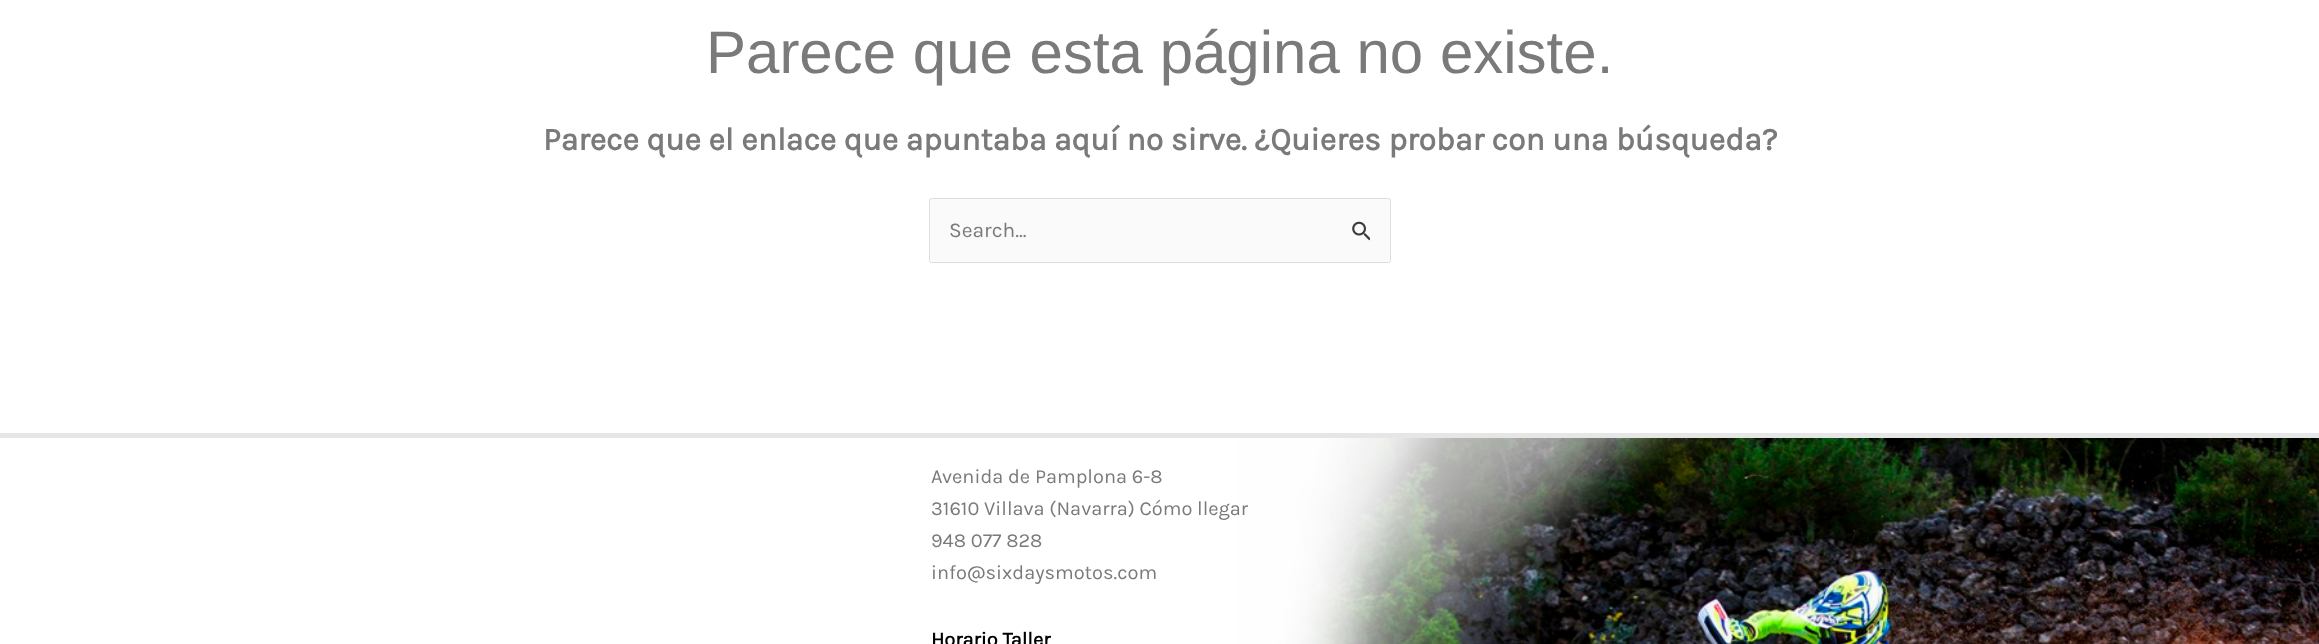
<!DOCTYPE html>
<meta charset="utf-8">
<style>body { margin: 0 } canvas { display: block }</style>
<canvas id="canvas" width="2319" height="644"></canvas>
<script type="module">
  const canvas = document.getElementById("canvas");
  const ctx = canvas.getContext("2d");
  ctx.miterLimit = 4;
  ctx.fontKerning = "normal";
  async function loadImage(src) {
    const img = new Image();
    img.src = src;
    await img.decode();
    return img;
  }

  ctx.fillStyle = "#ffffff";
  ctx.fillRect(0, 0, 2319, 644);
  ctx.font = "60px Liberation Sans";
  ctx.fillStyle = "#7a7a7a";
  ctx.fillText("Parece que esta página no existe.", 706, 73);
  ctx.font = "bold 31.9px Karla";
  ctx.fillText("Parece que el enlace que apuntaba aquí no sirve. ¿Quieres probar con una búsqueda?", 543, 150);
  ctx.fillStyle = "#fafafa";
  ctx.beginPath();
  ctx.roundRect(929.5, 198.5, 461, 64, 2);
  ctx.fill();
  ctx.strokeStyle = "#dddddd";
  ctx.stroke();
  ctx.font = "21px Karla";
  ctx.fillStyle = "#7a7a7a";
  ctx.fillText("Search...", 949, 237);
  ctx.drawImage(await loadImage("img1.png"), 1352, 221, 18, 20);
  ctx.drawImage(await loadImage("img2.png"), 0, 438, 2319, 206);
  ctx.fillStyle = "#e6e6e6";
  ctx.fillRect(0, 433, 2319, 5);
  ctx.font = "20px Karla";
  ctx.fillStyle = "#7a7a7a";
  ctx.fillText("Avenida de Pamplona 6-8", 931, 483);
  ctx.fillText("31610 Villava (Navarra) Cómo llegar", 931, 515);
  ctx.fillText("948 077 828", 931, 547);
  ctx.fillText("info@sixdaysmotos.com", 931, 579);
  ctx.font = "bold 20px Karla";
  ctx.fillStyle = "#000000";
  ctx.fillText("Horario Taller", 931, 646);
</script>
